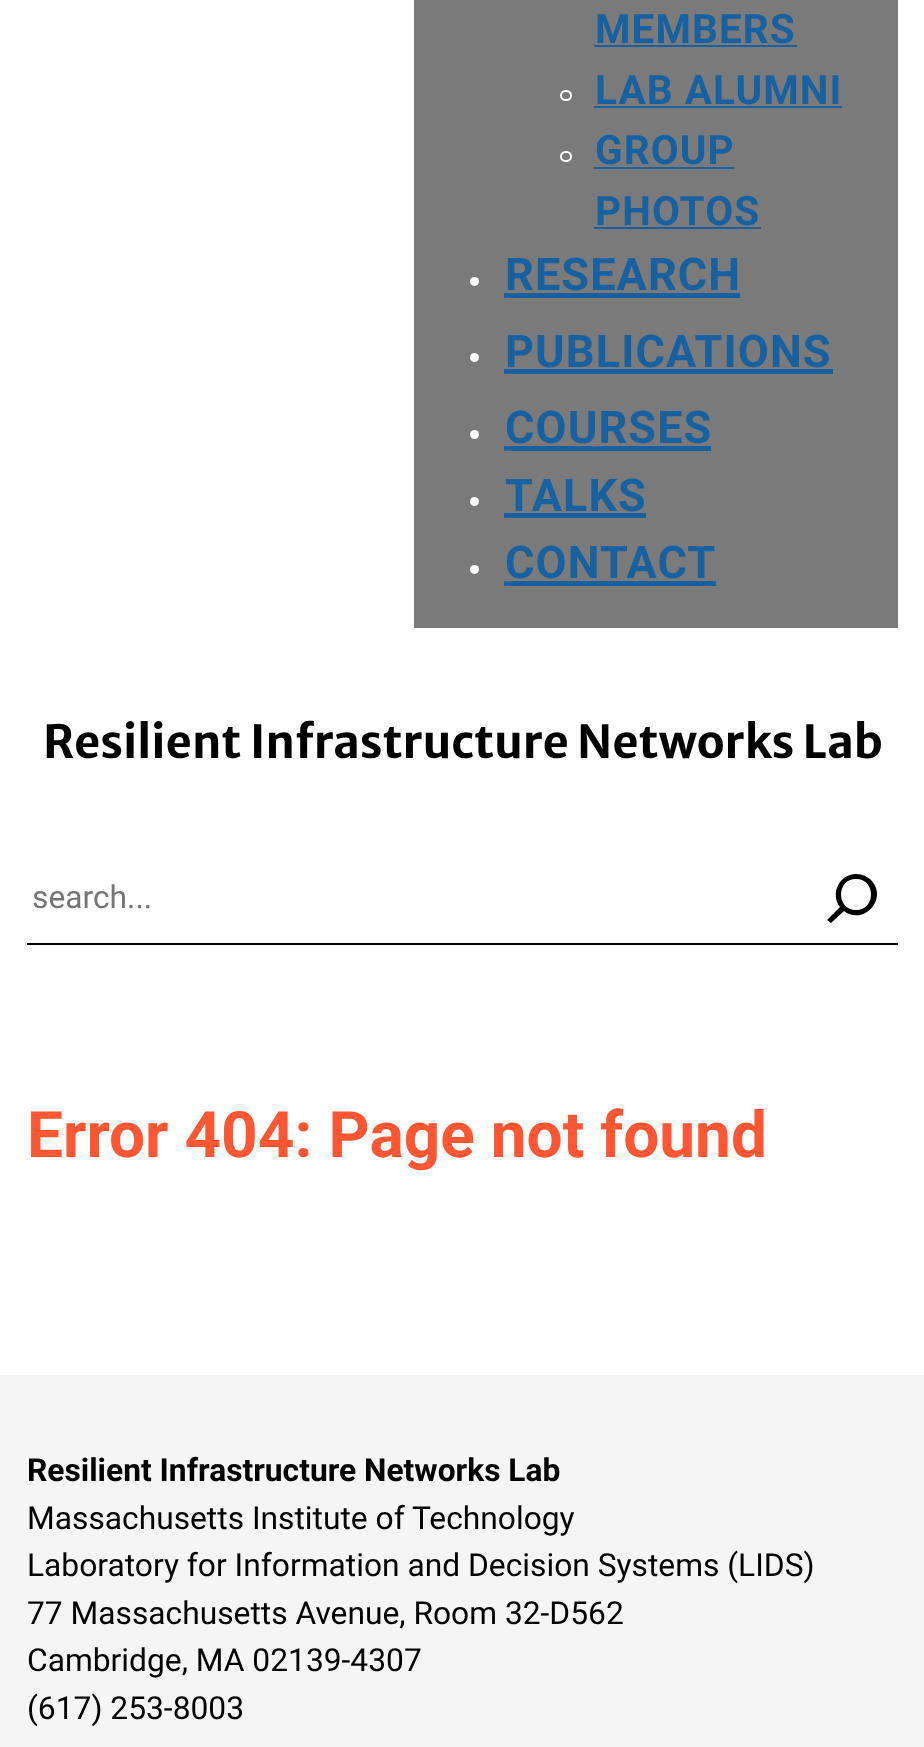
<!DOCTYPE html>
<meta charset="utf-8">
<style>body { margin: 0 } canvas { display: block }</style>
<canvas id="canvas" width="924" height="1747"></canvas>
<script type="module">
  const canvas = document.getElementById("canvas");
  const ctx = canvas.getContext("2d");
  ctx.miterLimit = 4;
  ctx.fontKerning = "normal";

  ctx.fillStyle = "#ffffff";
  ctx.fillRect(0, 0, 924, 1747);
  ctx.fillStyle = "#7a7a7a";
  ctx.fillRect(414, 0, 484, 628);
  ctx.letterSpacing = "1.1px";
  ctx.font = "bold 40.5px Roboto";
  ctx.fillStyle = "#1761a1";
  ctx.fillText("MEMBERS", 595, 43);
  ctx.fillRect(594, 45, 203, 2);
  ctx.beginPath();
  ctx.roundRect(561, 91, 10, 9, 4.5);
  ctx.strokeStyle = "#ffffff";
  ctx.lineWidth = 2;
  ctx.stroke();
  ctx.fillText("LAB ALUMNI", 595, 104);
  ctx.fillRect(594, 106, 248, 2);
  ctx.beginPath();
  ctx.roundRect(561, 152, 10, 9, 4.5);
  ctx.stroke();
  ctx.fillText("GROUP", 595, 164);
  ctx.fillRect(594, 167, 140, 2);
  ctx.fillText("PHOTOS", 595, 225);
  ctx.fillRect(594, 227, 167, 2);
  ctx.fillStyle = "#ffffff";
  ctx.beginPath();
  ctx.arc(474.5, 281.5, 4.5, 0, Math.PI * 2);
  ctx.fill();
  ctx.font = "bold 45px Roboto";
  ctx.fillStyle = "#1761a1";
  ctx.fillText("RESEARCH", 505, 290);
  ctx.fillRect(504, 293, 236, 5);
  ctx.fillStyle = "#ffffff";
  ctx.beginPath();
  ctx.arc(474.5, 357.5, 4.5, 0, Math.PI * 2);
  ctx.fill();
  ctx.fillStyle = "#1761a1";
  ctx.fillText("PUBLICATIONS", 505, 367);
  ctx.fillRect(504, 369, 329, 5);
  ctx.fillStyle = "#ffffff";
  ctx.beginPath();
  ctx.arc(474.5, 434.5, 4.5, 0, Math.PI * 2);
  ctx.fill();
  ctx.fillStyle = "#1761a1";
  ctx.fillText("COURSES", 505, 443);
  ctx.fillRect(504, 446, 207, 5);
  ctx.fillStyle = "#ffffff";
  ctx.beginPath();
  ctx.arc(474.5, 501.5, 4.5, 0, Math.PI * 2);
  ctx.fill();
  ctx.fillStyle = "#1761a1";
  ctx.fillText("TALKS", 505, 511);
  ctx.fillRect(504, 513, 142, 5);
  ctx.fillStyle = "#ffffff";
  ctx.beginPath();
  ctx.arc(474.5, 569.5, 4.5, 0, Math.PI * 2);
  ctx.fill();
  ctx.fillStyle = "#1761a1";
  ctx.fillText("CONTACT", 505, 578);
  ctx.fillRect(504, 581, 212, 5);
  ctx.letterSpacing = "0px";
  ctx.font = "bold 45.5px Merriweather Sans";
  ctx.fillStyle = "#000000";
  ctx.fillText("Resilient Infrastructure Networks Lab", 43, 758);
  ctx.fillRect(27, 943, 871, 2);
  ctx.font = "31.75px Roboto";
  ctx.fillStyle = "#757575";
  ctx.fillText("search...", 32, 908);
  ctx.fillStyle = "#000000";
  ctx.beginPath();
  ctx.moveTo(856, 874);
  ctx.bezierCurveTo(839, 874, 830, 894, 840, 907);
  ctx.lineTo(827, 920);
  ctx.lineTo(831, 923);
  ctx.lineTo(844, 911);
  ctx.bezierCurveTo(863, 926, 889, 899, 871, 880);
  ctx.bezierCurveTo(867, 876, 862, 874, 856, 874);
  ctx.closePath();
  ctx.moveTo(856, 910);
  ctx.bezierCurveTo(836, 910, 836, 879, 856, 879);
  ctx.bezierCurveTo(876, 879, 876, 910, 856, 910);
  ctx.closePath();
  ctx.fill();
  ctx.font = "bold 64px Roboto";
  ctx.fillStyle = "#ff5733";
  ctx.fillText("Error 404: Page not found", 27, 1157);
  ctx.fillStyle = "#f5f5f5";
  ctx.fillRect(0, 1375, 924, 372);
  ctx.font = "bold 31.75px Roboto";
  ctx.fillStyle = "#000000";
  ctx.fillText("Resilient Infrastructure Networks Lab", 27, 1481);
  ctx.font = "31.75px Roboto";
  ctx.fillText("Massachusetts Institute of Technology", 27, 1529);
  ctx.fillText("Laboratory for Information and Decision Systems (LIDS)", 27, 1576);
  ctx.fillText("77 Massachusetts Avenue, Room 32-D562", 27, 1624);
  ctx.fillText("Cambridge, MA 02139-4307", 27, 1671);
  ctx.fillText("(617) 253-8003", 27, 1719);
</script>
